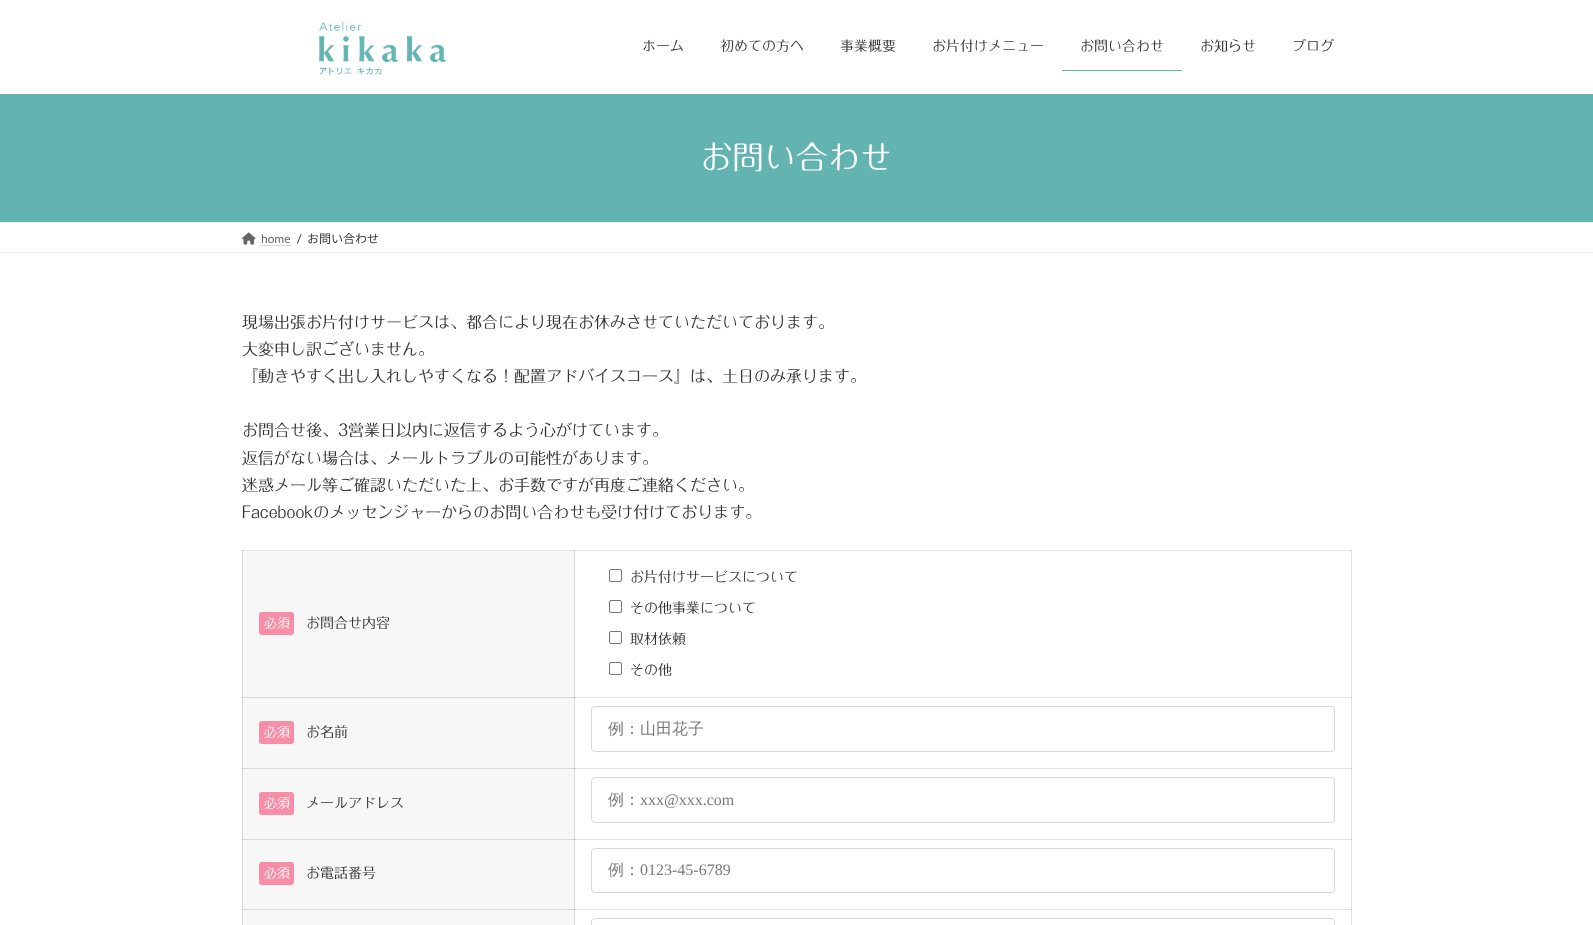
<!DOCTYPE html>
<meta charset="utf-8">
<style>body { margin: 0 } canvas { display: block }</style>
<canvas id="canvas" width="1593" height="925"></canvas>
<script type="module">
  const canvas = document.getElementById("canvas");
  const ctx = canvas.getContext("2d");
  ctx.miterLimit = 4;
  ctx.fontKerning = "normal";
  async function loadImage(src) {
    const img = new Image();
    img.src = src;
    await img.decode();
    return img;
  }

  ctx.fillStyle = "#ffffff";
  ctx.fillRect(0, 0, 1593, 925);
  ctx.fillStyle = "#e2e2e2";
  ctx.fillRect(574, 697, 778, 1);
  ctx.fillRect(574, 768, 778, 1);
  ctx.fillRect(574, 839, 778, 1);
  ctx.fillRect(574, 909, 778, 1);
  ctx.fillRect(1351, 550, 1, 375);
  ctx.fillStyle = "#bbbbbb";
  ctx.fillRect(1351, 697, 1, 1);
  ctx.fillRect(1351, 768, 1, 1);
  ctx.fillRect(1351, 839, 1, 1);
  ctx.fillRect(1351, 909, 1, 1);
  ctx.drawImage(await loadImage("img1.png"), 319, 21, 127, 54);
  ctx.font = "14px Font";
  ctx.fillStyle = "#333333";
  ctx.fillText("ホーム", 642, 51);
  ctx.fillText("初めての方へ", 720, 51);
  ctx.fillText("事業概要", 840, 51);
  ctx.fillText("お片付けメニュー", 932, 51);
  ctx.fillText("お問い合わせ", 1080, 51);
  ctx.fillStyle = "#63b3b1";
  ctx.fillRect(1062, 70, 120, 1);
  ctx.fillStyle = "#333333";
  ctx.fillText("お知らせ", 1200, 51);
  ctx.fillText("ブログ", 1292, 51);
  ctx.fillStyle = "#63b3b1";
  ctx.fillRect(0, 94, 1593, 128);
  ctx.font = "32px Font";
  ctx.fillStyle = "#ffffff";
  ctx.fillText("お問い合わせ", 700, 169);
  ctx.fillStyle = "#f0f0f0";
  ctx.fillRect(0, 222, 1593, 1);
  ctx.fillRect(0, 252, 1593, 1);
  ctx.drawImage(await loadImage("img2.png"), 242, 232, 14, 13);
  ctx.font = "12px Lato";
  ctx.fillStyle = "#666666";
  ctx.fillText("home", 261, 243);
  ctx.beginPath();
  ctx.moveTo(261.5, 245.5);
  ctx.lineTo(291, 245.5);
  ctx.strokeStyle = "#b3b3b3";
  ctx.setLineDash([1, 1]);
  ctx.stroke();
  ctx.fillStyle = "#333333";
  ctx.fillText("/", 297, 243);
  ctx.font = "12px Noto Sans JP";
  ctx.fillText("お問い合わせ", 307, 243);
  ctx.font = "16px Font";
  ctx.fillText("現場出張お片付けサービスは、都合により現在お休みさせていただいております。", 242, 328);
  ctx.font = "16px 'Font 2'";
  ctx.fillText("大変申し訳ございません。", 242, 355);
  ctx.fillText("『動きやすく出し入れしやすくなる！配置アドバイスコース』は、", 242, 382);
  ctx.font = "16px Font";
  ctx.fillText("土日のみ", 722, 382);
  ctx.font = "16px 'Font 2'";
  ctx.fillText("承ります。", 786, 382);
  ctx.fillText("お問合せ後、3営業日以内に返信するよう心がけています。", 242, 436);
  ctx.fillText("返信がない場合は、メールトラブルの可能性があります。", 242, 464);
  ctx.fillText("迷惑メール等ご確認いただいた上、お手数ですが再度ご連絡ください。", 242, 491);
  ctx.fillText("Facebookのメッセンジャーからのお問い合わせも受け付けております。", 242, 518);
  ctx.fillStyle = "#e2e2e2";
  ctx.fillRect(242, 550, 1110, 1);
  ctx.fillStyle = "#bbbbbb";
  ctx.fillRect(574, 550, 1, 1);
  ctx.fillStyle = "#c7c7c7";
  ctx.fillRect(242, 550, 1, 1);
  ctx.fillRect(1351, 550, 1, 1);
  ctx.fillStyle = "#f7f7f7";
  ctx.fillRect(243, 551, 331, 146);
  ctx.fillStyle = "#dadada";
  ctx.fillRect(574, 551, 1, 288);
  ctx.fillRect(242, 697, 333, 1);
  ctx.fillStyle = "#969696";
  ctx.fillRect(574, 697, 1, 1);
  ctx.fillStyle = "#dadada";
  ctx.fillRect(242, 551, 1, 147);
  ctx.fillStyle = "#b5b5b5";
  ctx.fillRect(242, 697, 1, 1);
  ctx.fillStyle = "#f78da7";
  ctx.beginPath();
  ctx.roundRect(259, 612, 35, 23, 3);
  ctx.fill();
  ctx.font = "13px 'Font 2'";
  ctx.fillStyle = "#ffffff";
  ctx.fillText("必須", 264, 628);
  ctx.font = "14px 'Font 2'";
  ctx.fillStyle = "#333333";
  ctx.fillText("お問合せ内容", 306, 628);
  ctx.beginPath();
  ctx.roundRect(609.5, 569.5, 12, 12, 1.5);
  ctx.strokeStyle = "#767676";
  ctx.setLineDash([]);
  ctx.stroke();
  ctx.fillText("お片付けサービスについて", 630, 582);
  ctx.beginPath();
  ctx.roundRect(609.5, 600.5, 12, 12, 1.5);
  ctx.stroke();
  ctx.fillText("その他事業について", 630, 613);
  ctx.beginPath();
  ctx.roundRect(609.5, 631.5, 12, 12, 1.5);
  ctx.stroke();
  ctx.fillText("取材依頼", 630, 644);
  ctx.beginPath();
  ctx.roundRect(609.5, 662.5, 12, 12, 1.5);
  ctx.stroke();
  ctx.fillText("その他", 630, 675);
  ctx.fillStyle = "#f7f7f7";
  ctx.fillRect(243, 698, 331, 70);
  ctx.fillStyle = "#dadada";
  ctx.fillRect(242, 768, 333, 1);
  ctx.fillStyle = "#969696";
  ctx.fillRect(574, 768, 1, 1);
  ctx.fillStyle = "#dadada";
  ctx.fillRect(242, 698, 1, 141);
  ctx.fillStyle = "#b5b5b5";
  ctx.fillRect(242, 768, 1, 1);
  ctx.fillStyle = "#f78da7";
  ctx.beginPath();
  ctx.roundRect(259, 721, 35, 23, 3);
  ctx.fill();
  ctx.font = "13px 'Font 2'";
  ctx.fillStyle = "#ffffff";
  ctx.fillText("必須", 264, 737);
  ctx.font = "14px 'Font 2'";
  ctx.fillStyle = "#333333";
  ctx.fillText("お名前", 306, 737);
  ctx.beginPath();
  ctx.roundRect(591.5, 706.5, 743, 45, 3.5);
  ctx.strokeStyle = "#d8d8d8";
  ctx.stroke();
  ctx.font = "500 16px WenQuanYi Zen Hei";
  ctx.fillStyle = "#797979";
  ctx.fillText("例：山田花子", 608, 734);
  ctx.fillStyle = "#f7f7f7";
  ctx.fillRect(243, 769, 331, 70);
  ctx.fillStyle = "#f78da7";
  ctx.beginPath();
  ctx.roundRect(259, 792, 35, 23, 3);
  ctx.fill();
  ctx.font = "13px 'Font 2'";
  ctx.fillStyle = "#ffffff";
  ctx.fillText("必須", 264, 808);
  ctx.font = "14px 'Font 2'";
  ctx.fillStyle = "#333333";
  ctx.fillText("メールアドレス", 306, 808);
  ctx.beginPath();
  ctx.roundRect(591.5, 777.5, 743, 45, 3.5);
  ctx.stroke();
  ctx.font = "500 16px WenQuanYi Zen Hei";
  ctx.fillStyle = "#797979";
  ctx.fillText("例：", 608, 805);
  ctx.font = "16px Liberation Serif";
  ctx.fillText("xxx@xxx.com", 640, 805);
  ctx.fillStyle = "#f7f7f7";
  ctx.fillRect(243, 840, 331, 69);
  ctx.fillStyle = "#dadada";
  ctx.fillRect(242, 839, 333, 1);
  ctx.fillRect(574, 839, 1, 86);
  ctx.fillStyle = "#969696";
  ctx.fillRect(574, 839, 1, 1);
  ctx.fillStyle = "#dadada";
  ctx.fillRect(242, 909, 333, 1);
  ctx.fillStyle = "#969696";
  ctx.fillRect(574, 909, 1, 1);
  ctx.fillStyle = "#dadada";
  ctx.fillRect(242, 839, 1, 86);
  ctx.fillStyle = "#b5b5b5";
  ctx.fillRect(242, 839, 1, 1);
  ctx.fillRect(242, 909, 1, 1);
  ctx.fillStyle = "#f78da7";
  ctx.beginPath();
  ctx.roundRect(259, 862, 35, 23, 3);
  ctx.fill();
  ctx.font = "13px 'Font 2'";
  ctx.fillStyle = "#ffffff";
  ctx.fillText("必須", 264, 878);
  ctx.font = "14px 'Font 2'";
  ctx.fillStyle = "#333333";
  ctx.fillText("お電話番号", 306, 878);
  ctx.beginPath();
  ctx.roundRect(591.5, 848.5, 743, 44, 3.5);
  ctx.stroke();
  ctx.font = "500 16px WenQuanYi Zen Hei";
  ctx.fillStyle = "#797979";
  ctx.fillText("例：", 608, 875);
  ctx.font = "16px Liberation Serif";
  ctx.fillText("0123-45-6789", 640, 875);
  ctx.fillStyle = "#f7f7f7";
  ctx.fillRect(243, 910, 331, 15);
  ctx.beginPath();
  ctx.roundRect(591.5, 918.5, 743, 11, 3.5);
  ctx.stroke();
</script>
